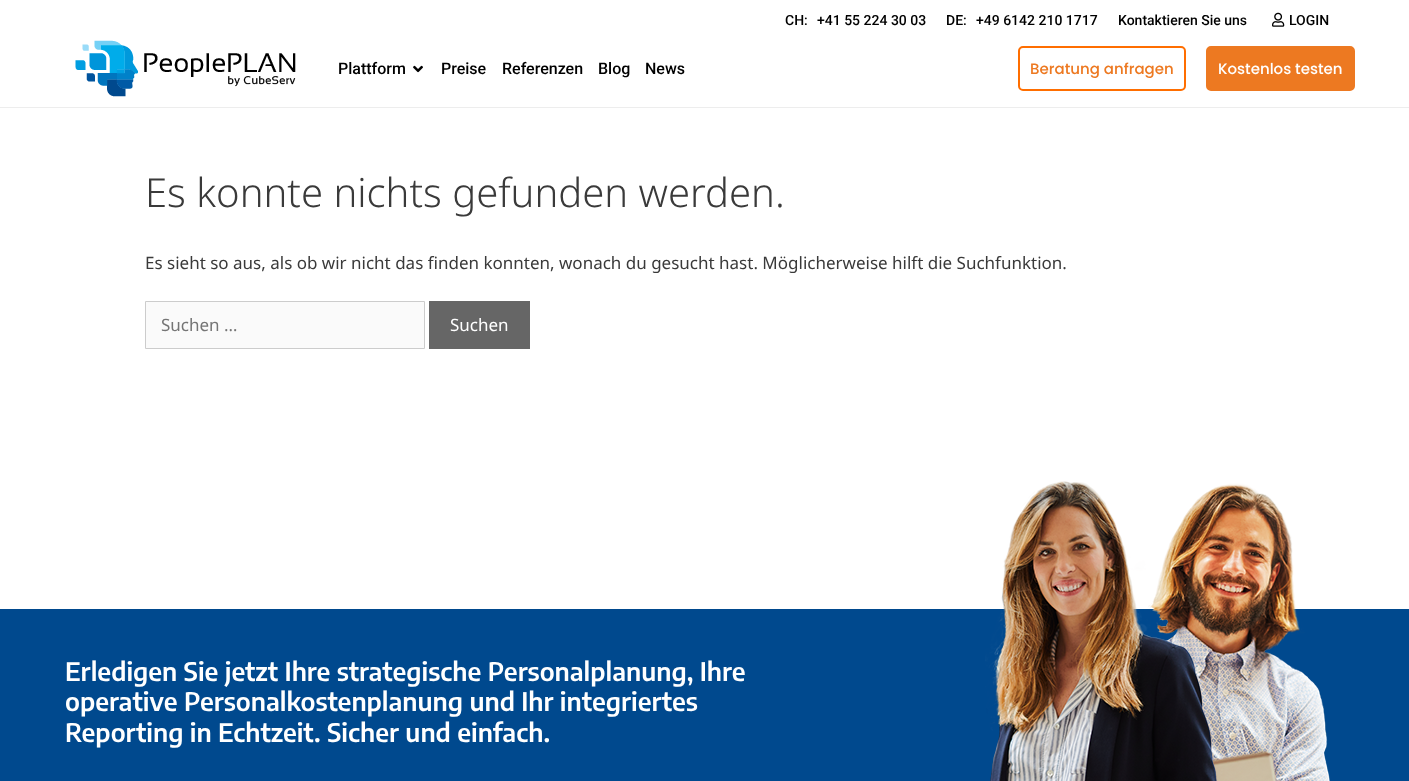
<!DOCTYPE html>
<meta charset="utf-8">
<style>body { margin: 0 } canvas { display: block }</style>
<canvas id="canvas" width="1409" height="781"></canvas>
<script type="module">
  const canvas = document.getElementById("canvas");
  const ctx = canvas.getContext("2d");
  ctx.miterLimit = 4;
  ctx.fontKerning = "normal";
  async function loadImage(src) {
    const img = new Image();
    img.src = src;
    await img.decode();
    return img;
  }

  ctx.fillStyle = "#ffffff";
  ctx.fillRect(0, 0, 1409, 781);
  ctx.fillStyle = "#ededed";
  ctx.fillRect(0, 107, 1409, 1);
  ctx.font = "500 14px Roboto";
  ctx.fillStyle = "#000000";
  ctx.fillText("CH:", 785, 25);
  ctx.fillText("+41 55 224 30 03", 817, 25);
  ctx.fillText("DE:", 946, 25);
  ctx.fillText("+49 6142 210 1717", 976, 25);
  ctx.fillText("Kontaktieren Sie uns", 1118, 25);
  ctx.drawImage(await loadImage("img1.png"), 1272, 12, 13, 15);
  ctx.fillText("LOGIN", 1289, 25);
  ctx.drawImage(await loadImage("img2.png"), 75, 40, 221, 57);
  ctx.font = "500 16px Roboto";
  ctx.fillText("Plattform", 338, 74);
  ctx.drawImage(await loadImage("img3.png"), 413, 65, 10, 8);
  ctx.fillText("Preise", 441, 74);
  ctx.fillText("Referenzen", 502, 74);
  ctx.fillText("Blog", 598, 74);
  ctx.fillText("News", 645, 74);
  ctx.beginPath();
  ctx.roundRect(1019, 47, 166, 43, 4);
  ctx.strokeStyle = "#ff6e00";
  ctx.lineWidth = 2;
  ctx.stroke();
  ctx.font = "500 15px Poppins";
  ctx.fillStyle = "#ed7921";
  ctx.fillText("Beratung anfragen", 1030, 74);
  ctx.beginPath();
  ctx.roundRect(1207, 47, 147, 43, 4);
  ctx.fill();
  ctx.strokeStyle = "#ed7921";
  ctx.stroke();
  ctx.fillStyle = "#ffffff";
  ctx.fillText("Kostenlos testen", 1218, 74);
  ctx.font = "300 40px Noto Sans";
  ctx.fillStyle = "#3a3a3a";
  ctx.fillText("Es konnte nichts gefunden werden.", 145, 207);
  ctx.font = "17px Noto Sans";
  ctx.fillText("Es sieht so aus, als ob wir nicht das finden konnten, wonach du gesucht hast. Möglicherweise hilft die Suchfunktion.", 145, 269);
  ctx.fillStyle = "#fafafa";
  ctx.beginPath();
  ctx.rect(145.5, 301.5, 279, 47);
  ctx.fill();
  ctx.strokeStyle = "#cccccc";
  ctx.lineWidth = 1;
  ctx.stroke();
  ctx.fillStyle = "#757575";
  ctx.fillText("Suchen …", 161, 331);
  ctx.fillStyle = "#666666";
  ctx.fillRect(429, 301, 101, 48);
  ctx.fillStyle = "#ffffff";
  ctx.fillText("Suchen", 450, 331);
  ctx.fillStyle = "#00498e";
  ctx.fillRect(0, 609, 1409, 172);
  ctx.font = "600 25.5px Encode Sans Condensed";
  ctx.fillStyle = "#ffffff";
  ctx.fillText("Erledigen Sie jetzt Ihre strategische Personalplanung, Ihre", 65, 681);
  ctx.fillText("operative Personalkostenplanung und Ihr integriertes", 65, 711);
  ctx.fillText("Reporting in Echtzeit. Sicher und einfach.", 65, 742);
  ctx.drawImage(await loadImage("img4.png"), 985, 481, 345, 300);
</script>
